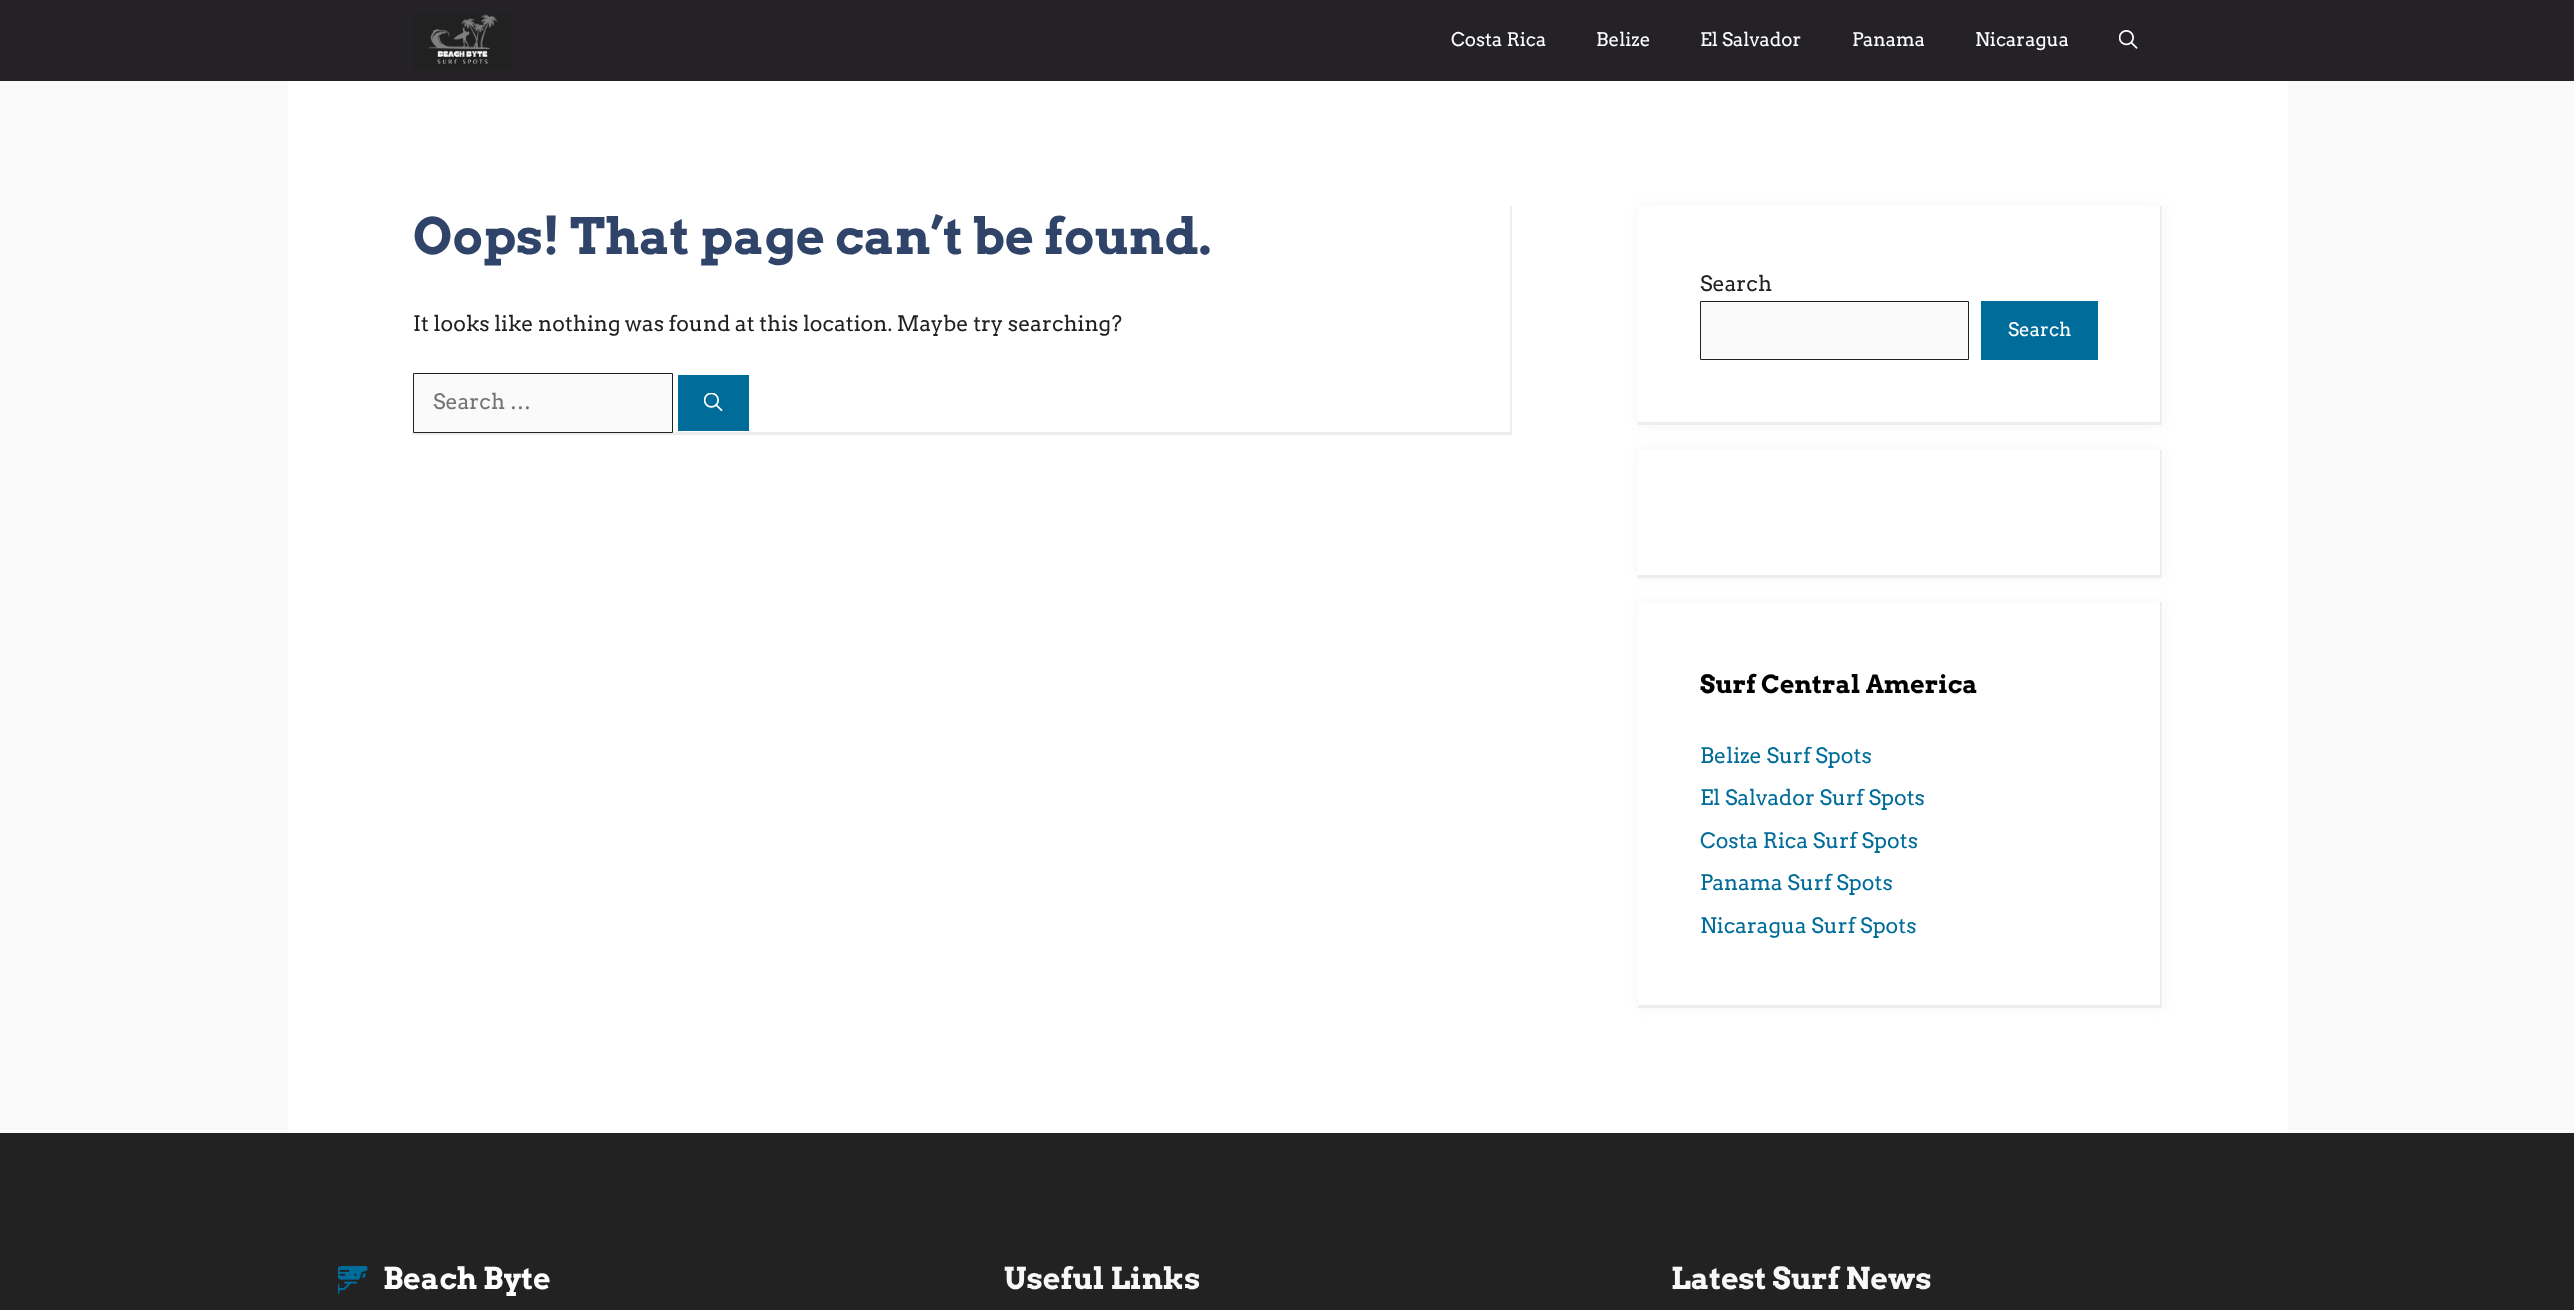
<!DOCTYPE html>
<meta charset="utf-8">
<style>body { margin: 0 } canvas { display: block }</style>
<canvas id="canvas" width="2574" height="1310"></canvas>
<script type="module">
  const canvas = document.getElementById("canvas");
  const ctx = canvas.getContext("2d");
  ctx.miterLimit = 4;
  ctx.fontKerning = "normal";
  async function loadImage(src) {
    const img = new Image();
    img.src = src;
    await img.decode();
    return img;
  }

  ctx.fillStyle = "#fafafa";
  ctx.fillRect(0, 0, 2574, 1310);
  ctx.fillStyle = "#242226";
  ctx.fillRect(0, 0, 2574, 81);
  ctx.drawImage(await loadImage("img1.png"), 413, 13, 99, 56);
  ctx.font = "18.75px Arvo";
  ctx.fillStyle = "#ffffff";
  ctx.fillText("Costa Rica", 1451, 46);
  ctx.fillText("Belize", 1596, 46);
  ctx.fillText("El Salvador", 1700, 46);
  ctx.fillText("Panama", 1852, 46);
  ctx.fillText("Nicaragua", 1975, 46);
  ctx.drawImage(await loadImage("img2.png"), 2119, 30, 19, 19);
  ctx.fillRect(288, 81, 2000, 1052);
  ctx.fillStyle = "#ededed";
  ctx.beginPath();
  ctx.moveTo(1512, 206);
  ctx.lineTo(1512, 435);
  ctx.lineTo(1510, 432);
  ctx.lineTo(1510, 206);
  ctx.closePath();
  ctx.fill();
  ctx.fillStyle = "rgba(0, 0, 0, 0.07)";
  ctx.beginPath();
  ctx.moveTo(1512, 435);
  ctx.lineTo(412, 435);
  ctx.lineTo(412, 432);
  ctx.lineTo(1510, 432);
  ctx.closePath();
  ctx.fill();
  ctx.font = "bold 50px Arvo";
  ctx.fillStyle = "#2f4468";
  ctx.fillText("Oops! That page can’t be found.", 413, 254);
  ctx.font = "21.25px Arvo";
  ctx.fillStyle = "#212121";
  ctx.fillText("It looks like nothing was found at this location. Maybe try searching?", 413, 331);
  ctx.fillStyle = "#fafafa";
  ctx.beginPath();
  ctx.rect(413.5, 373.5, 259, 59);
  ctx.fill();
  ctx.strokeStyle = "#212121";
  ctx.stroke();
  ctx.fillStyle = "#757575";
  ctx.fillText("Search …", 433, 409);
  ctx.fillStyle = "#006c9a";
  ctx.fillRect(678, 375, 71, 56);
  ctx.drawImage(await loadImage("img3.png"), 704, 393, 19, 18);
  ctx.fillStyle = "rgba(232, 234, 237, 0.5)";
  ctx.filter = "blur(6px)";
  ctx.beginPath();
  ctx.rect(1638, 206, 525, 219);
  ctx.fill();
  ctx.filter = "none";
  ctx.fillStyle = "#ffffff";
  ctx.fillRect(1638, 206, 525, 219);
  ctx.fillStyle = "#ededed";
  ctx.beginPath();
  ctx.moveTo(2162, 206);
  ctx.lineTo(2162, 425);
  ctx.lineTo(2160, 422);
  ctx.lineTo(2160, 206);
  ctx.closePath();
  ctx.fill();
  ctx.fillStyle = "rgba(0, 0, 0, 0.07)";
  ctx.beginPath();
  ctx.moveTo(2162, 425);
  ctx.lineTo(1638, 425);
  ctx.lineTo(1638, 422);
  ctx.lineTo(2160, 422);
  ctx.closePath();
  ctx.fill();
  ctx.fillStyle = "#212121";
  ctx.fillText("Search", 1700, 291);
  ctx.fillStyle = "#fafafa";
  ctx.beginPath();
  ctx.rect(1700.5, 301.5, 268, 58);
  ctx.fill();
  ctx.stroke();
  ctx.fillStyle = "#006c9a";
  ctx.fillRect(1981, 301, 117, 59);
  ctx.font = "18.75px Arvo";
  ctx.fillStyle = "#ffffff";
  ctx.fillText("Search", 2008, 336);
  ctx.fillStyle = "rgba(232, 234, 237, 0.5)";
  ctx.filter = "blur(6px)";
  ctx.beginPath();
  ctx.rect(1638, 450, 525, 128);
  ctx.fill();
  ctx.filter = "none";
  ctx.fillStyle = "#ffffff";
  ctx.fillRect(1638, 450, 525, 128);
  ctx.fillStyle = "#ededed";
  ctx.beginPath();
  ctx.moveTo(2162, 450);
  ctx.lineTo(2162, 578);
  ctx.lineTo(2160, 575);
  ctx.lineTo(2160, 450);
  ctx.closePath();
  ctx.fill();
  ctx.fillStyle = "rgba(0, 0, 0, 0.07)";
  ctx.beginPath();
  ctx.moveTo(2162, 578);
  ctx.lineTo(1638, 578);
  ctx.lineTo(1638, 575);
  ctx.lineTo(2160, 575);
  ctx.closePath();
  ctx.fill();
  ctx.fillStyle = "rgba(232, 234, 237, 0.5)";
  ctx.filter = "blur(6px)";
  ctx.beginPath();
  ctx.rect(1638, 603, 525, 405);
  ctx.fill();
  ctx.filter = "none";
  ctx.fillStyle = "#ffffff";
  ctx.fillRect(1638, 603, 525, 405);
  ctx.fillStyle = "#ededed";
  ctx.beginPath();
  ctx.moveTo(2162, 602);
  ctx.lineTo(2162, 1008);
  ctx.lineTo(2160, 1005);
  ctx.lineTo(2160, 602);
  ctx.closePath();
  ctx.fill();
  ctx.fillStyle = "rgba(0, 0, 0, 0.07)";
  ctx.beginPath();
  ctx.moveTo(2162, 1008);
  ctx.lineTo(1638, 1008);
  ctx.lineTo(1638, 1005);
  ctx.lineTo(2160, 1005);
  ctx.closePath();
  ctx.fill();
  ctx.font = "bold 25px Arvo";
  ctx.fillStyle = "#000000";
  ctx.fillText("Surf Central America", 1700, 693);
  ctx.font = "21.25px Arvo";
  ctx.fillStyle = "#006c9a";
  ctx.fillText("Belize Surf Spots", 1700, 763);
  ctx.fillText("El Salvador Surf Spots", 1700, 805);
  ctx.fillText("Costa Rica Surf Spots", 1700, 848);
  ctx.fillText("Panama Surf Spots", 1700, 890);
  ctx.fillText("Nicaragua Surf Spots", 1700, 933);
  ctx.fillStyle = "#222222";
  ctx.fillRect(0, 1133, 2574, 177);
  ctx.drawImage(await loadImage("img4.png"), 338, 1266, 30, 28);
  ctx.font = "bold 30px Arvo";
  ctx.fillStyle = "#ffffff";
  ctx.fillText("Beach Byte", 383, 1289);
  ctx.fillStyle = "#f7f8f9";
  ctx.fillText("Useful Links", 1004, 1289);
  ctx.fillText("Latest Surf News", 1671, 1289);
</script>
